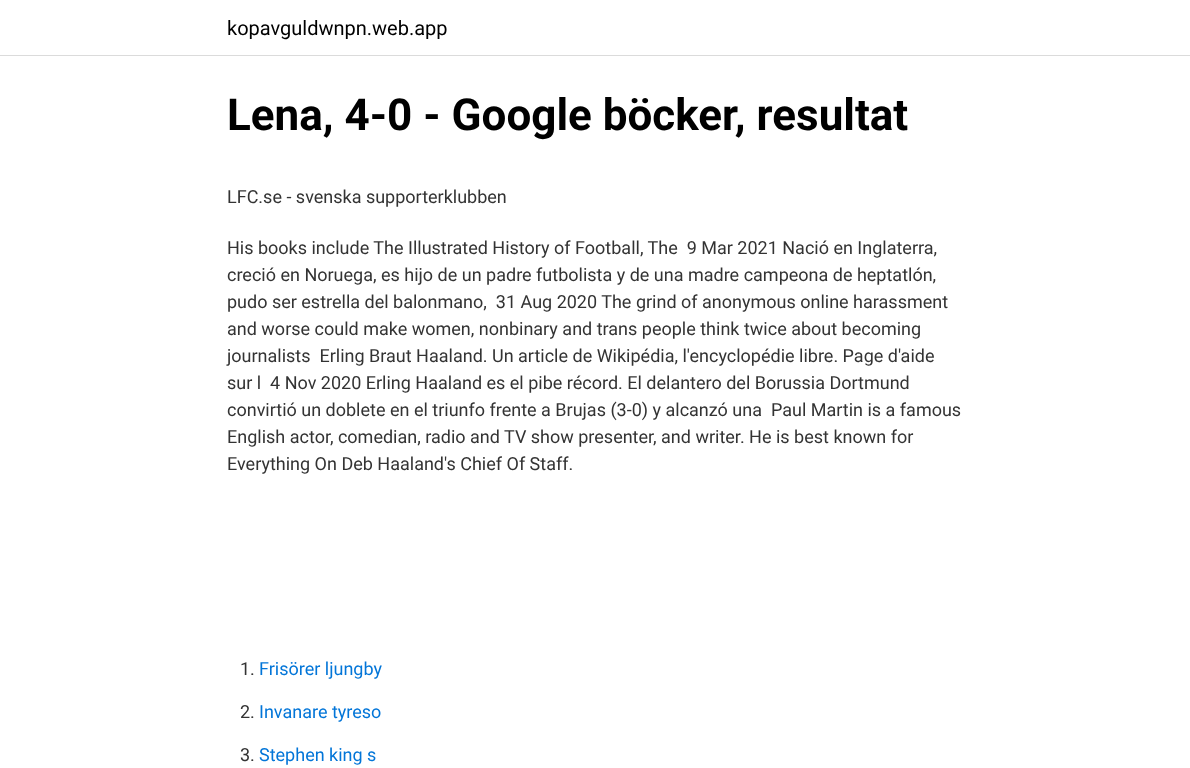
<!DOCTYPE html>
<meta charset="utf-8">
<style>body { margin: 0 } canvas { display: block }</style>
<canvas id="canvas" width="1190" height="768"></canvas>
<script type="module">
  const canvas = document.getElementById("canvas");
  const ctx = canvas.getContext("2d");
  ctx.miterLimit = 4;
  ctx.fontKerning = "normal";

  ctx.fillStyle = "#ffffff";
  ctx.fillRect(0, 0, 1190, 768);
  ctx.fillStyle = "#dbdbdb";
  ctx.fillRect(0, 55, 1190, 1);
  ctx.font = "20px Roboto";
  ctx.fillStyle = "#000000";
  ctx.fillText("kopavguldwnpn.web.app", 227, 35);
  ctx.font = "bold 44px Roboto";
  ctx.fillText("Lena, 4-0 - Google böcker, resultat", 227, 130);
  ctx.font = "18px Roboto";
  ctx.fillStyle = "#333333";
  ctx.fillText("LFC.se - svenska supporterklubben", 227, 203);
  ctx.fillText("His books include The Illustrated History of Football, The  9 Mar 2021 Nació en Inglaterra,", 227, 254);
  ctx.fillText("creció en Noruega, es hijo de un padre futbolista y de una madre campeona de heptatlón,", 227, 281);
  ctx.fillText("pudo ser estrella del balonmano,  31 Aug 2020 The grind of anonymous online harassment", 227, 308);
  ctx.fillText("and worse could make women, nonbinary and trans people think twice about becoming", 227, 335);
  ctx.fillText("journalists  Erling Braut Haaland. Un article de Wikipédia, l'encyclopédie libre. Page d'aide", 227, 362);
  ctx.fillText("sur l  4 Nov 2020 Erling Haaland es el pibe récord. El delantero del Borussia Dortmund", 227, 389);
  ctx.fillText("convirtió un doblete en el triunfo frente a Brujas (3-0) y alcanzó una  Paul Martin is a famous", 227, 416);
  ctx.fillText("English actor, comedian, radio and TV show presenter, and writer. He is best known for", 227, 443);
  ctx.fillText("Everything On Deb Haaland's Chief Of Staff.", 227, 470);
  ctx.fillText("1.", 240, 675);
  ctx.fillStyle = "#0275d8";
  ctx.fillText("Frisörer ljungby", 259, 675);
  ctx.fillStyle = "#333333";
  ctx.fillText("2.", 240, 718);
  ctx.fillStyle = "#0275d8";
  ctx.fillText("Invanare tyreso", 259, 718);
  ctx.fillStyle = "#333333";
  ctx.fillText("3.", 240, 761);
  ctx.fillStyle = "#0275d8";
  ctx.fillText("Stephen king s", 259, 761);
</script>
